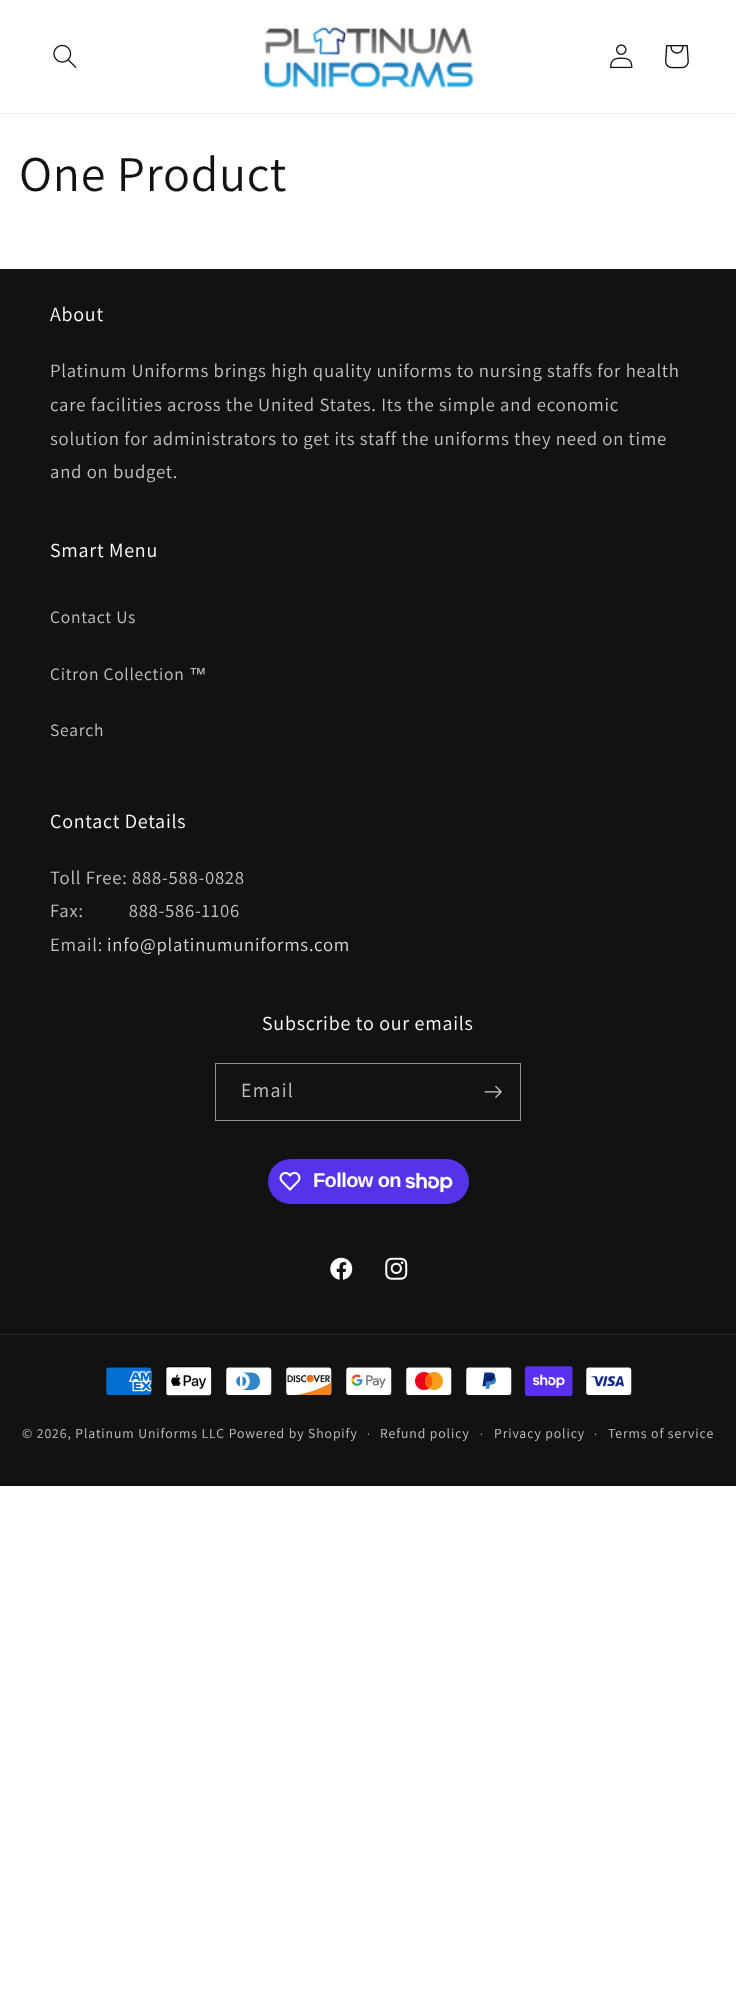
<!DOCTYPE html>
<meta charset="utf-8">
<style>body { margin: 0 } canvas { display: block }</style>
<canvas id="canvas" width="736" height="1991"></canvas>
<script type="module">
  const canvas = document.getElementById("canvas");
  const ctx = canvas.getContext("2d");
  ctx.miterLimit = 4;
  ctx.fontKerning = "normal";
  async function loadImage(src) {
    const img = new Image();
    img.src = src;
    await img.decode();
    return img;
  }

  ctx.fillStyle = "#ffffff";
  ctx.fillRect(0, 0, 736, 1991);
  ctx.fillStyle = "#ececec";
  ctx.fillRect(0, 113, 736, 1);
  ctx.drawImage(await loadImage("img1.png"), 53, 44, 24, 24);
  ctx.drawImage(await loadImage("img2.png"), 263, 27, 211, 61);
  ctx.drawImage(await loadImage("img3.png"), 610, 44, 23, 25);
  ctx.drawImage(await loadImage("img4.png"), 665, 45, 24, 24);
  ctx.letterSpacing = "0.75px";
  ctx.font = "50px Assistant";
  ctx.fillStyle = "#121212";
  ctx.fillText("One Product", 19, 191);
  ctx.fillRect(0, 269, 736, 1217);
  ctx.font = "20px Assistant";
  ctx.fillStyle = "#ffffff";
  ctx.fillText("About", 50, 321);
  ctx.font = "18.75px Assistant";
  ctx.fillStyle = "#c4c4c4";
  ctx.fillText("Platinum Uniforms brings high quality uniforms to nursing staffs for health", 50, 377);
  ctx.fillText("care facilities across the United States. Its the simple and economic", 50, 411);
  ctx.fillText("solution for administrators to get its staff the uniforms they need on time", 50, 445);
  ctx.fillText("and on budget.", 50, 478);
  ctx.font = "20px Assistant";
  ctx.fillStyle = "#ffffff";
  ctx.fillText("Smart Menu", 50, 557);
  ctx.font = "17.5px Assistant";
  ctx.fillStyle = "#c4c4c4";
  ctx.fillText("Contact Us", 50, 623);
  ctx.fillText("Citron Collection", 50, 680);
  ctx.font = "17.5px Liberation Sans";
  ctx.fillText("™", 189, 680);
  ctx.font = "17.5px Assistant";
  ctx.fillText("Search", 50, 736);
  ctx.font = "20px Assistant";
  ctx.fillStyle = "#ffffff";
  ctx.fillText("Contact Details", 50, 828);
  ctx.font = "18.75px Assistant";
  ctx.fillStyle = "#c4c4c4";
  ctx.fillText("Toll Free: 888-588-0828", 50, 884);
  ctx.fillText("Fax:          888-586-1106", 50, 917);
  ctx.fillText("Email:", 50, 951);
  ctx.fillStyle = "#dbdbdb";
  ctx.fillText("info@platinumuniforms.com", 107, 951);
  ctx.font = "20px Assistant";
  ctx.fillStyle = "#ffffff";
  ctx.fillText("Subscribe to our emails", 262, 1030);
  ctx.strokeStyle = "#949494";
  ctx.strokeRect(215.5, 1063.5, 305, 57);
  ctx.letterSpacing = "1.25px";
  ctx.fillStyle = "#c4c4c4";
  ctx.fillText("Email", 241, 1097);
  ctx.drawImage(await loadImage("img5.png"), 484, 1085, 18, 13);
  ctx.fillStyle = "#5433eb";
  ctx.beginPath();
  ctx.roundRect(268, 1159, 201, 45, 22.5);
  ctx.fill();
  ctx.drawImage(await loadImage("img6.png"), 279, 1171, 22, 20);
  ctx.letterSpacing = "-0.6px";
  ctx.font = "bold 20px Liberation Sans";
  ctx.fillStyle = "#ffffff";
  ctx.fillText("Follow on", 313, 1187);
  ctx.drawImage(await loadImage("img7.png"), 405, 1173, 48, 20);
  ctx.drawImage(await loadImage("img8.png"), 330, 1257, 23, 23);
  ctx.drawImage(await loadImage("img9.png"), 385, 1257, 23, 23);
  ctx.fillStyle = "#252525";
  ctx.fillRect(0, 1334, 736, 1);
  ctx.drawImage(await loadImage("img10.png"), 106, 1367, 46, 28);
  ctx.drawImage(await loadImage("img11.png"), 165, 1366, 47, 30);
  ctx.drawImage(await loadImage("img12.png"), 226, 1367, 46, 28);
  ctx.drawImage(await loadImage("img13.png"), 286, 1367, 46, 28);
  ctx.drawImage(await loadImage("img14.png"), 346, 1367, 46, 28);
  ctx.drawImage(await loadImage("img15.png"), 406, 1367, 46, 28);
  ctx.drawImage(await loadImage("img16.png"), 466, 1367, 46, 28);
  ctx.drawImage(await loadImage("img17.png"), 525, 1366, 48, 30);
  ctx.drawImage(await loadImage("img18.png"), 586, 1367, 46, 28);
  ctx.letterSpacing = "0.9px";
  ctx.font = "13.75px Assistant";
  ctx.fillStyle = "#c4c4c4";
  ctx.fillText("© 2026, Platinum Uniforms LLC Powered by Shopify", 22, 1438);
  ctx.font = "12px Assistant";
  ctx.fillText("·", 367, 1438);
  ctx.font = "13.75px Assistant";
  ctx.fillText("Refund policy", 380, 1438);
  ctx.font = "12px Assistant";
  ctx.fillText("·", 480, 1438);
  ctx.font = "13.75px Assistant";
  ctx.fillText("Privacy policy", 494, 1438);
  ctx.font = "12px Assistant";
  ctx.fillText("·", 594, 1438);
  ctx.font = "13.75px Assistant";
  ctx.fillText("Terms of service", 608, 1438);
</script>
